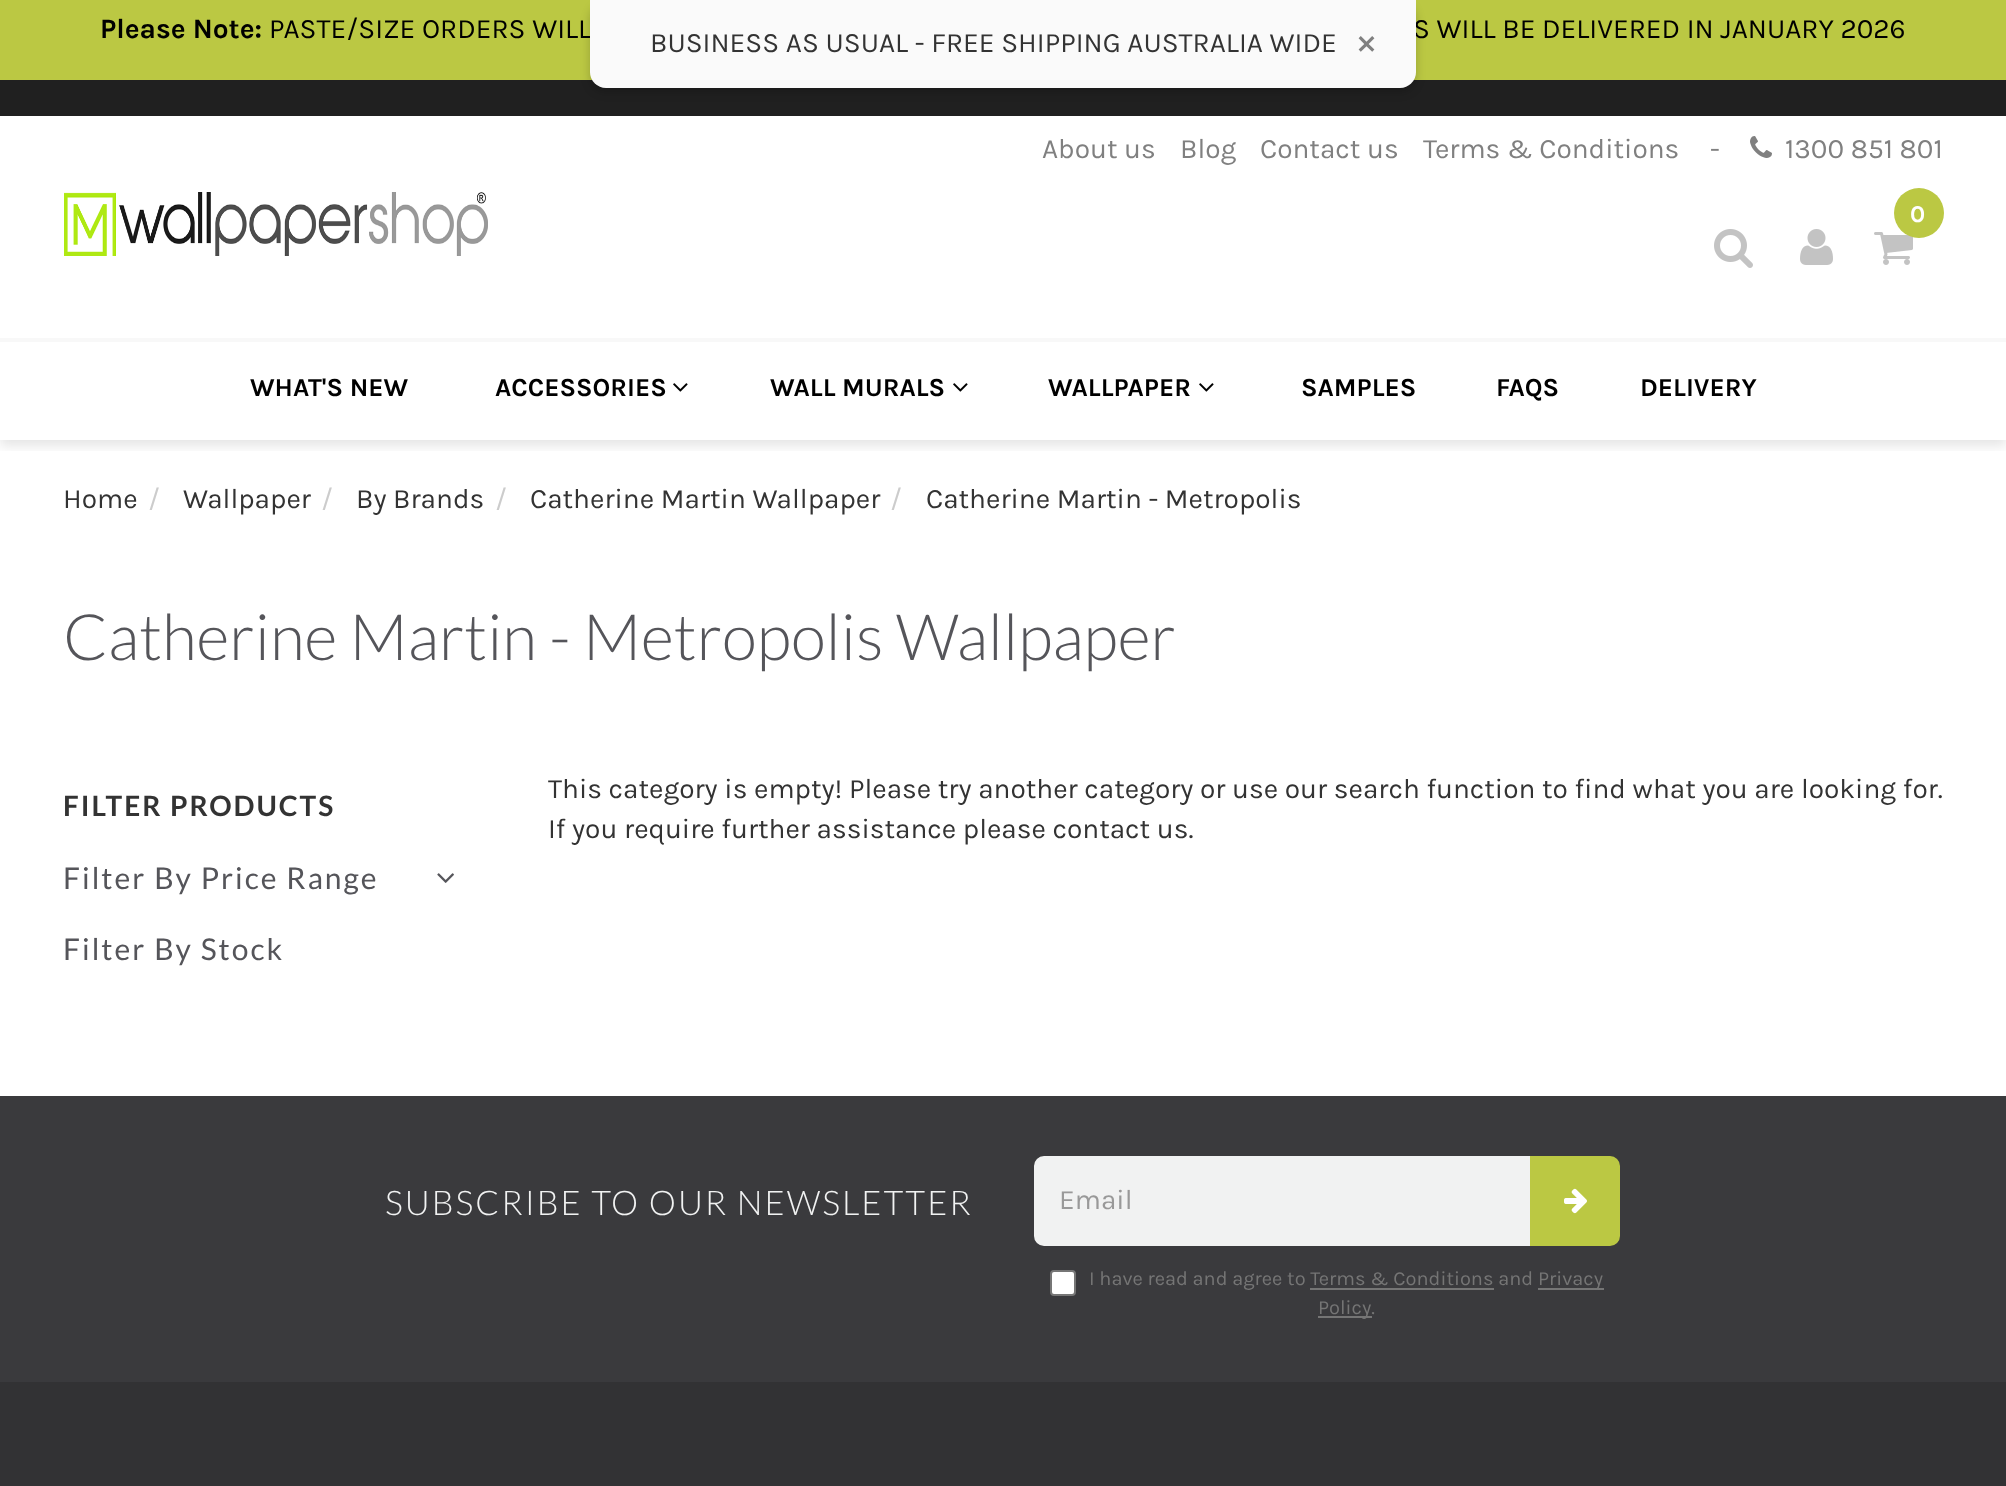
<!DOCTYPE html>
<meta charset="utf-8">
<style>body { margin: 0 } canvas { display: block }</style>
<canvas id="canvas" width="2006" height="1486"></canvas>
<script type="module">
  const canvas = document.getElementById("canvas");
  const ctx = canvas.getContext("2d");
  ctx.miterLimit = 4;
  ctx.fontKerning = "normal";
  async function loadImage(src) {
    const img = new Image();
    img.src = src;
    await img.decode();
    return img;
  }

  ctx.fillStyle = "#ffffff";
  ctx.fillRect(0, 0, 2006, 1486);
  ctx.fillStyle = "#bbc843";
  ctx.fillRect(0, 0, 2006, 80);
  ctx.font = "bold 28px Karla";
  ctx.fillStyle = "#000000";
  ctx.fillText("Please Note:", 100, 38);
  ctx.font = "28px Karla";
  ctx.fillText("PASTE/SIZE ORDERS WILL", 269, 38);
  ctx.fillText("S WILL BE DELIVERED IN JANUARY 2026", 1413, 38);
  ctx.fillStyle = "#202020";
  ctx.fillRect(0, 80, 2006, 36);
  ctx.fillStyle = "rgba(0, 0, 0, 0.2)";
  ctx.filter = "blur(5px)";
  ctx.beginPath();
  ctx.roundRect(590, 4, 826, 88, 16);
  ctx.fill();
  ctx.filter = "none";
  ctx.fillStyle = "#fafafa";
  ctx.beginPath();
  ctx.roundRect(590, 0, 826, 88, [0, 0, 16, 16]);
  ctx.fill();
  ctx.fillStyle = "#333333";
  ctx.fillText("BUSINESS AS USUAL - FREE SHIPPING AUSTRALIA WIDE", 650, 52);
  ctx.font = "40px Karla";
  ctx.fillStyle = "#808080";
  ctx.fillText("×", 1356, 54);
  ctx.save();
  ctx.beginPath();
  ctx.rect(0, 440, 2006, 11);
  ctx.clip();
  ctx.fillStyle = "rgba(0, 0, 0, 0.1)";
  ctx.filter = "blur(6px)";
  ctx.beginPath();
  ctx.rect(0, 344, 2006, 102);
  ctx.fill();
  ctx.filter = "none";
  ctx.restore();
  ctx.fillStyle = "#ffffff";
  ctx.fillRect(4, 336, 1998, 2);
  ctx.font = "28px Karla";
  ctx.fillStyle = "#808080";
  ctx.fillText("About us", 1042, 158);
  ctx.fillText("Blog", 1180, 158);
  ctx.fillText("Contact us", 1260, 158);
  ctx.fillText("Terms & Conditions", 1423, 158);
  ctx.fillText("-", 1710, 158);
  ctx.drawImage(await loadImage("img1.png"), 1750, 136, 22, 22);
  ctx.fillText("1300 851 801", 1785, 158);
  ctx.drawImage(await loadImage("img2.png"), 64, 192, 424, 64);
  ctx.drawImage(await loadImage("img3.png"), 1874, 232, 39, 33);
  ctx.fillStyle = "#bbc843";
  ctx.beginPath();
  ctx.arc(1919, 213, 25, 0, Math.PI * 2);
  ctx.fill();
  ctx.font = "bold 24px Karla";
  ctx.fillStyle = "#ffffff";
  ctx.fillText("0", 1910, 222);
  ctx.drawImage(await loadImage("img4.png"), 1714, 229, 39, 39);
  ctx.drawImage(await loadImage("img5.png"), 1800, 229, 33, 36);
  ctx.fillStyle = "#f8f8f8";
  ctx.fillRect(0, 338, 2006, 4);
  ctx.font = "bold 26px Karla";
  ctx.fillStyle = "#000000";
  ctx.fillText("WHAT'S NEW", 250, 396);
  ctx.fillText("ACCESSORIES", 495, 396);
  ctx.drawImage(await loadImage("img6.png"), 673, 383, 15, 9);
  ctx.fillText("WALL MURALS", 770, 396);
  ctx.drawImage(await loadImage("img6.png"), 953, 383, 15, 9);
  ctx.fillText("WALLPAPER", 1048, 396);
  ctx.drawImage(await loadImage("img6.png"), 1199, 383, 15, 9);
  ctx.fillText("SAMPLES", 1301, 396);
  ctx.fillText("FAQS", 1496, 396);
  ctx.fillText("DELIVERY", 1640, 396);
  ctx.font = "28px Karla";
  ctx.fillStyle = "#333333";
  ctx.fillText("Home", 63, 508);
  ctx.fillStyle = "#cccccc";
  ctx.fillText("/", 148, 508);
  ctx.fillStyle = "#333333";
  ctx.fillText("Wallpaper", 183, 508);
  ctx.fillStyle = "#cccccc";
  ctx.fillText("/", 321, 508);
  ctx.fillStyle = "#333333";
  ctx.fillText("By Brands", 356, 508);
  ctx.fillStyle = "#cccccc";
  ctx.fillText("/", 495, 508);
  ctx.fillStyle = "#333333";
  ctx.fillText("Catherine Martin Wallpaper", 530, 508);
  ctx.fillStyle = "#cccccc";
  ctx.fillText("/", 890, 508);
  ctx.fillStyle = "#333333";
  ctx.fillText("Catherine Martin - Metropolis", 926, 508);
  ctx.font = "300 64px Lato";
  ctx.fillStyle = "#55555a";
  ctx.fillText("Catherine Martin - Metropolis Wallpaper", 63, 660);
  ctx.letterSpacing = "2px";
  ctx.font = "bold 28px Lato";
  ctx.fillStyle = "#333333";
  ctx.fillText("FILTER PRODUCTS", 63, 816);
  ctx.font = "30px Lato";
  ctx.fillStyle = "#55555a";
  ctx.fillText("Filter By Price Range", 63, 889);
  ctx.drawImage(await loadImage("img7.png"), 437, 873, 17, 10);
  ctx.fillText("Filter By Stock", 63, 960);
  ctx.letterSpacing = "0px";
  ctx.font = "28px Karla";
  ctx.fillStyle = "#333333";
  ctx.fillText("This category is empty! Please try another category or use our search function to find what you are looking for.", 548, 798);
  ctx.fillText("If you require further assistance please contact us.", 548, 838);
  ctx.fillStyle = "#3a3a3d";
  ctx.fillRect(0, 1096, 2006, 286);
  ctx.letterSpacing = "2px";
  ctx.font = "300 34px Lato";
  ctx.fillStyle = "#f1f2f2";
  ctx.fillText("SUBSCRIBE TO OUR NEWSLETTER", 385, 1215);
  ctx.beginPath();
  ctx.roundRect(1035, 1157, 496, 88, [9, 0, 0, 9]);
  ctx.fill();
  ctx.strokeStyle = "#f1f2f2";
  ctx.lineWidth = 2;
  ctx.stroke();
  ctx.letterSpacing = "0px";
  ctx.font = "28px Karla";
  ctx.fillStyle = "#999999";
  ctx.fillText("Email", 1059, 1209);
  ctx.fillStyle = "#bbc843";
  ctx.beginPath();
  ctx.roundRect(1531, 1157, 88, 88, [0, 9, 9, 0]);
  ctx.fill();
  ctx.strokeStyle = "#bbc843";
  ctx.stroke();
  ctx.drawImage(await loadImage("img8.png"), 1564, 1188, 23, 26);
  ctx.fillStyle = "#ffffff";
  ctx.beginPath();
  ctx.roundRect(1051, 1271, 24, 24, 3);
  ctx.fill();
  ctx.strokeStyle = "#767676";
  ctx.stroke();
  ctx.font = "20px Karla";
  ctx.fillStyle = "#757575";
  ctx.fillText("I have read and agree to Terms & Conditions and", 1089, 1285);
  ctx.fillRect(1538, 1288, 66, 2);
  ctx.fillText("Privacy", 1538, 1285);
  ctx.fillRect(1310, 1288, 184, 2);
  ctx.fillRect(1318, 1316, 54, 2);
  ctx.fillText("Policy.", 1318, 1314);
  ctx.fillStyle = "#323234";
  ctx.fillRect(0, 1382, 2006, 104);
</script>
